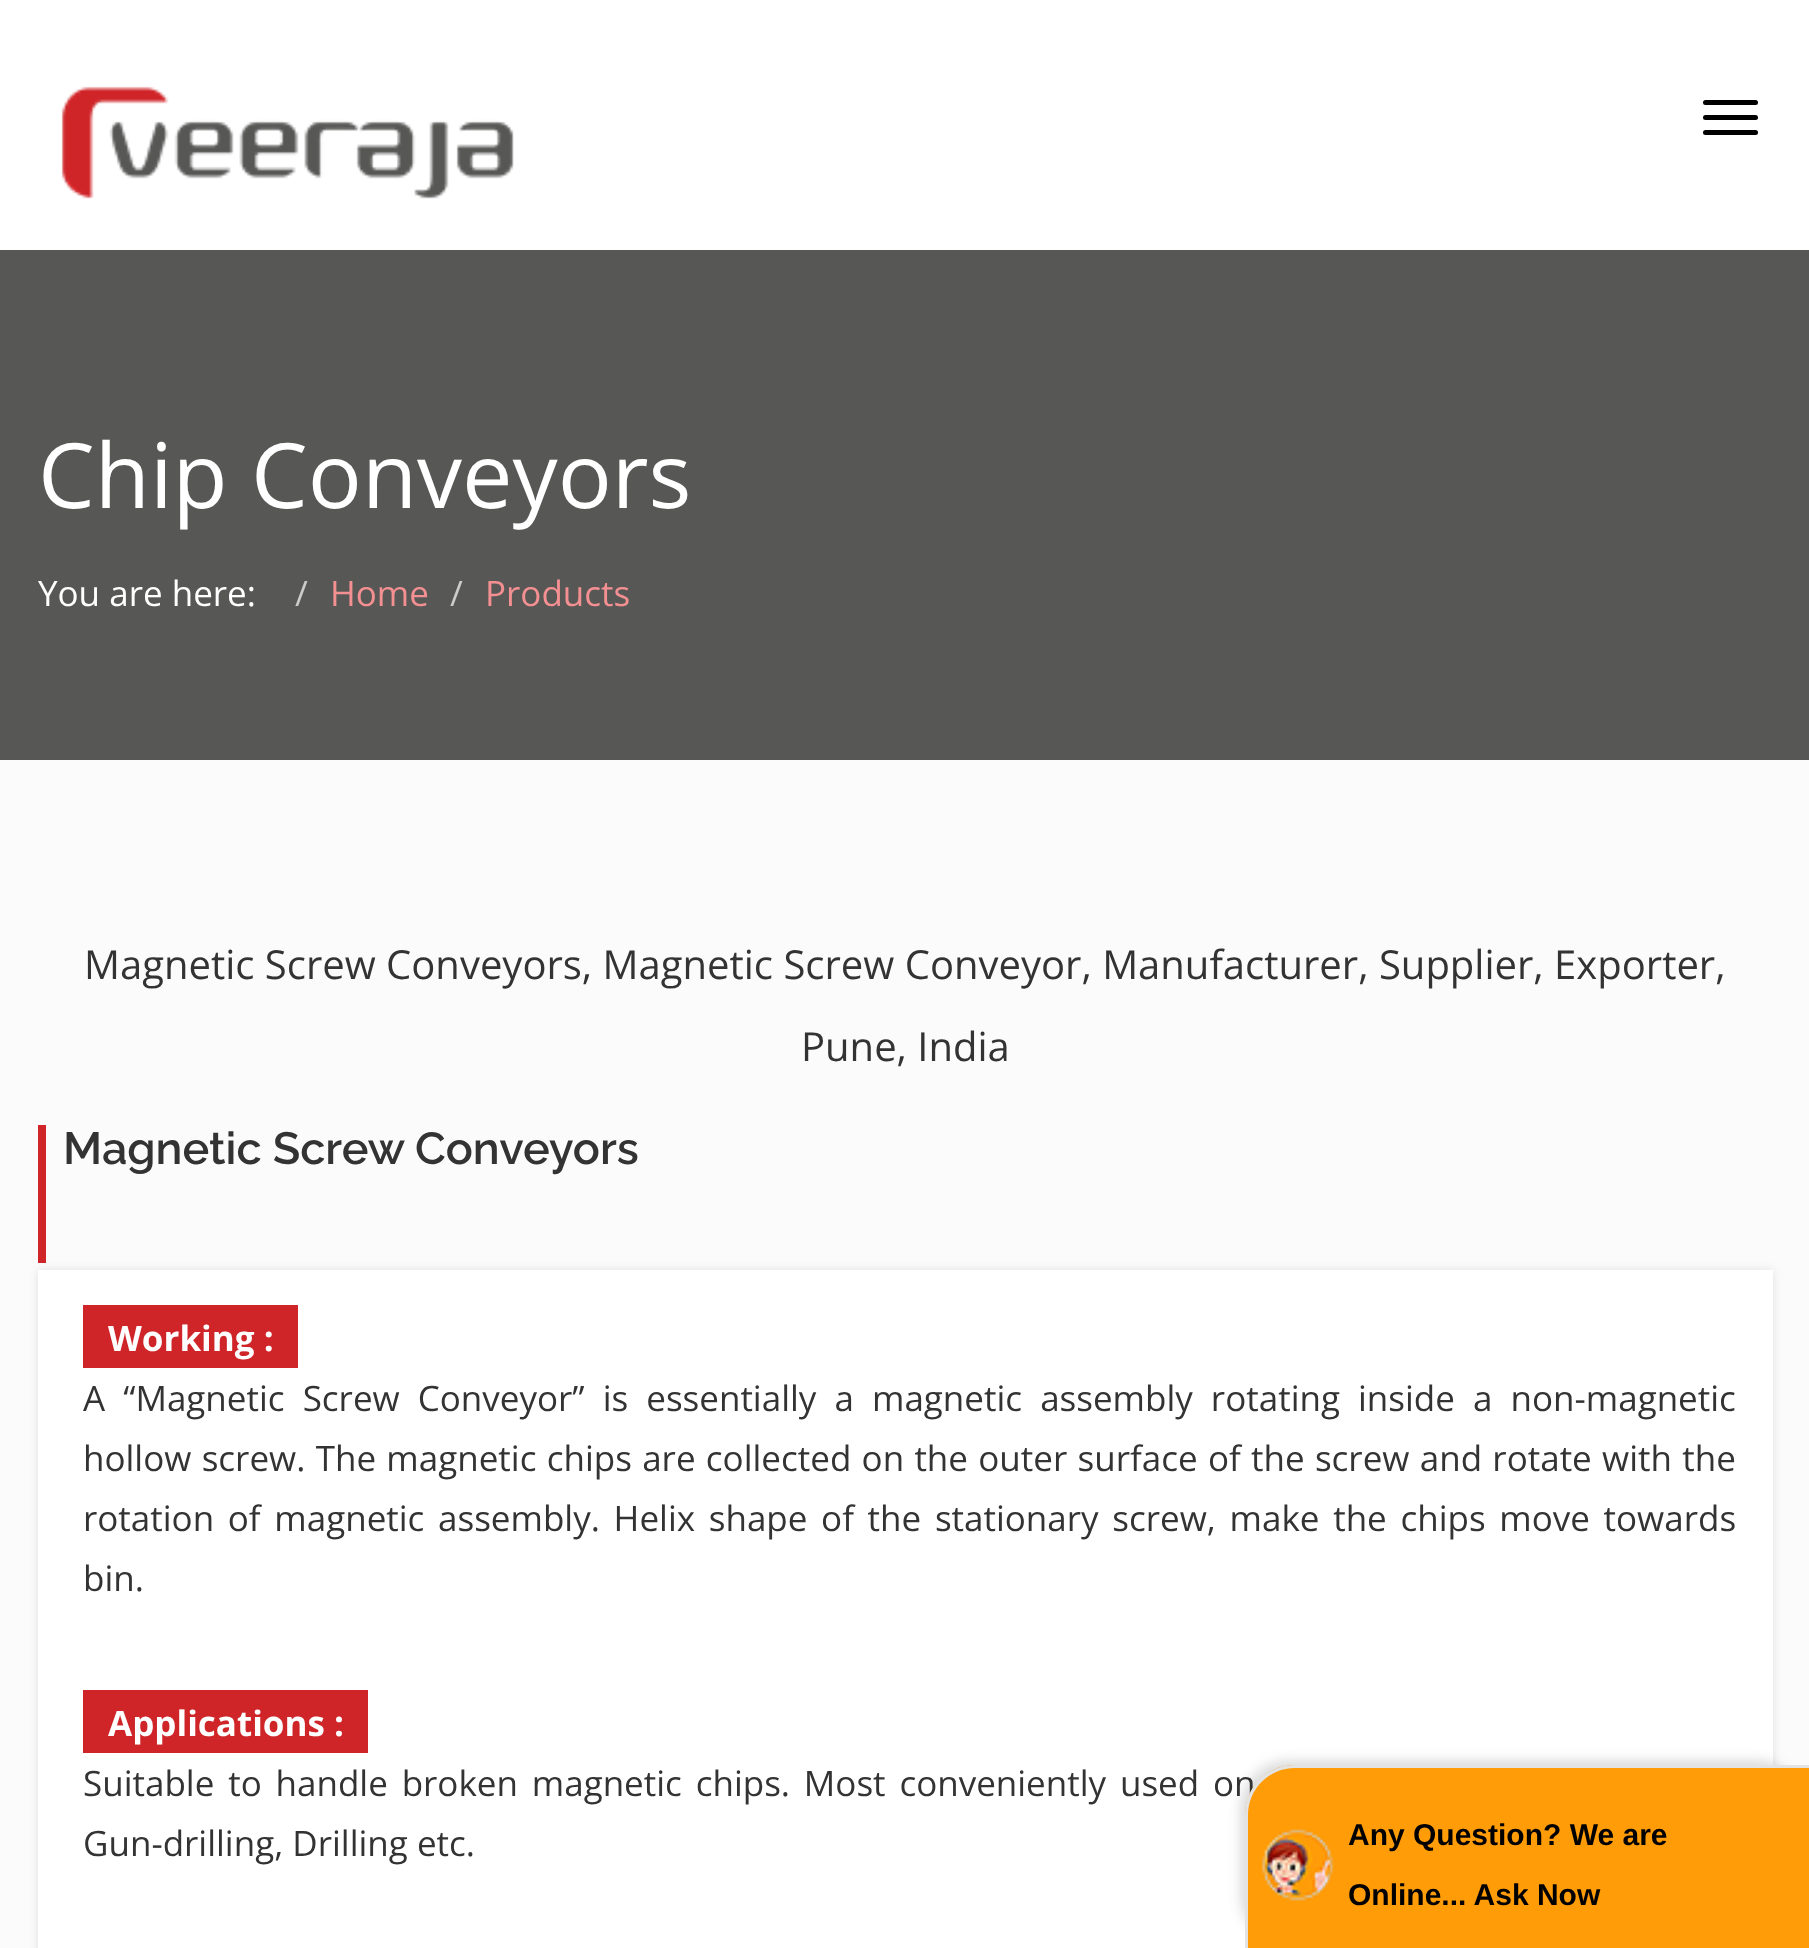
<!DOCTYPE html>
<meta charset="utf-8">
<style>body { margin: 0 } canvas { display: block }</style>
<canvas id="canvas" width="1809" height="1948"></canvas>
<script type="module">
  const canvas = document.getElementById("canvas");
  const ctx = canvas.getContext("2d");
  ctx.miterLimit = 4;
  ctx.fontKerning = "normal";
  async function loadImage(src) {
    const img = new Image();
    img.src = src;
    await img.decode();
    return img;
  }

  ctx.fillStyle = "#ffffff";
  ctx.fillRect(0, 0, 1809, 1948);
  ctx.drawImage(await loadImage("img1.png"), 61, 86, 453, 113);
  ctx.fillStyle = "#000000";
  ctx.beginPath();
  ctx.roundRect(1703, 100, 55, 5, 2.5);
  ctx.fill();
  ctx.beginPath();
  ctx.roundRect(1703, 115, 55, 5, 2.5);
  ctx.fill();
  ctx.beginPath();
  ctx.roundRect(1703, 130, 55, 5, 2.5);
  ctx.fill();
  ctx.fillStyle = "#575756";
  ctx.fillRect(0, 250, 1809, 510);
  ctx.font = "90px Open Sans";
  ctx.fillStyle = "#ffffff";
  ctx.fillText("Chip Conveyors", 38, 508);
  ctx.font = "35px Open Sans";
  ctx.fillText("You are here:", 38, 606);
  ctx.fillStyle = "#cccccc";
  ctx.fillText("/", 295, 606);
  ctx.fillStyle = "#f49092";
  ctx.fillText("Home", 330, 606);
  ctx.fillStyle = "#cccccc";
  ctx.fillText("/", 450, 606);
  ctx.fillStyle = "#f49092";
  ctx.fillText("Products", 485, 606);
  ctx.fillStyle = "#fbfbfb";
  ctx.fillRect(0, 760, 1809, 1188);
  ctx.font = "40px Open Sans";
  ctx.fillStyle = "#333333";
  ctx.fillText("Magnetic Screw Conveyors, Magnetic Screw Conveyor, Manufacturer, Supplier, Exporter,", 84, 979);
  ctx.fillText("Pune, India", 801, 1061);
  ctx.fillStyle = "#cf2529";
  ctx.fillRect(38, 1125, 8, 138);
  ctx.font = "600 45px Raleway";
  ctx.fillStyle = "#333333";
  ctx.fillText("Magnetic Screw Conveyors", 63, 1164);
  ctx.fillStyle = "rgba(0, 0, 0, 0.1)";
  ctx.filter = "blur(5px)";
  ctx.beginPath();
  ctx.rect(38, 1270, 1735, 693);
  ctx.fill();
  ctx.filter = "none";
  ctx.fillStyle = "#ffffff";
  ctx.fillRect(38, 1270, 1735, 678);
  ctx.fillStyle = "#cf2529";
  ctx.fillRect(83, 1305, 215, 63);
  ctx.font = "bold 35px Open Sans";
  ctx.fillStyle = "#ffffff";
  ctx.fillText("Working :", 108, 1351);
  ctx.wordSpacing = "9px";
  ctx.font = "35px Open Sans";
  ctx.fillStyle = "#333333";
  ctx.fillText("A “Magnetic Screw Conveyor” is essentially a magnetic assembly rotating inside a non-magnetic", 83, 1411);
  ctx.wordSpacing = "1.2px";
  ctx.fillText("hollow screw. The magnetic chips are collected on the outer surface of the screw and rotate with the", 83, 1471);
  ctx.wordSpacing = "4.6px";
  ctx.fillText("rotation of magnetic assembly. Helix shape of the stationary screw, make the chips move towards", 83, 1531);
  ctx.wordSpacing = "0px";
  ctx.fillText("bin.", 83, 1591);
  ctx.fillStyle = "#cf2529";
  ctx.fillRect(83, 1690, 285, 63);
  ctx.font = "bold 35px Open Sans";
  ctx.fillStyle = "#ffffff";
  ctx.fillText("Applications :", 108, 1736);
  ctx.wordSpacing = "4.75px";
  ctx.font = "35px Open Sans";
  ctx.fillStyle = "#333333";
  ctx.fillText("Suitable to handle broken magnetic chips. Most conveniently used on", 83, 1796);
  ctx.wordSpacing = "0px";
  ctx.fillText("Gun-drilling, Drilling etc.", 83, 1856);
  ctx.fillStyle = "rgba(50, 50, 50, 0.17)";
  ctx.filter = "blur(6px)";
  ctx.beginPath();
  ctx.roundRect(1240, 1760, 565, 185, 50);
  ctx.fill();
  ctx.filter = "none";
  ctx.fillStyle = "#ff9c08";
  ctx.beginPath();
  ctx.moveTo(1295, 1765);
  ctx.lineTo(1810, 1765);
  ctx.lineTo(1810, 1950);
  ctx.lineTo(1245, 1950);
  ctx.lineTo(1245, 1815);
  ctx.bezierCurveTo(1245, 1787.5, 1267.5, 1765, 1295, 1765);
  ctx.closePath();
  ctx.fill();
  ctx.fillStyle = "#e3e3e3";
  ctx.beginPath();
  ctx.moveTo(1295, 1765);
  ctx.lineTo(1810, 1765);
  ctx.lineTo(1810, 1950);
  ctx.lineTo(1245, 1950);
  ctx.lineTo(1245, 1815);
  ctx.bezierCurveTo(1245, 1787, 1267, 1765, 1295, 1765);
  ctx.closePath();
  ctx.moveTo(1295, 1768);
  ctx.lineTo(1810, 1768);
  ctx.lineTo(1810, 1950);
  ctx.lineTo(1248, 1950);
  ctx.lineTo(1248, 1815);
  ctx.bezierCurveTo(1248, 1789, 1269, 1768, 1295, 1768);
  ctx.closePath();
  ctx.fill("evenodd");
  ctx.drawImage(await loadImage("img2.png"), 1261, 1829, 73, 72);
  ctx.font = "bold 30px Liberation Sans";
  ctx.fillStyle = "#000000";
  ctx.fillText("Any Question? We are", 1348, 1845);
  ctx.fillText("Online... Ask Now", 1348, 1905);
</script>
